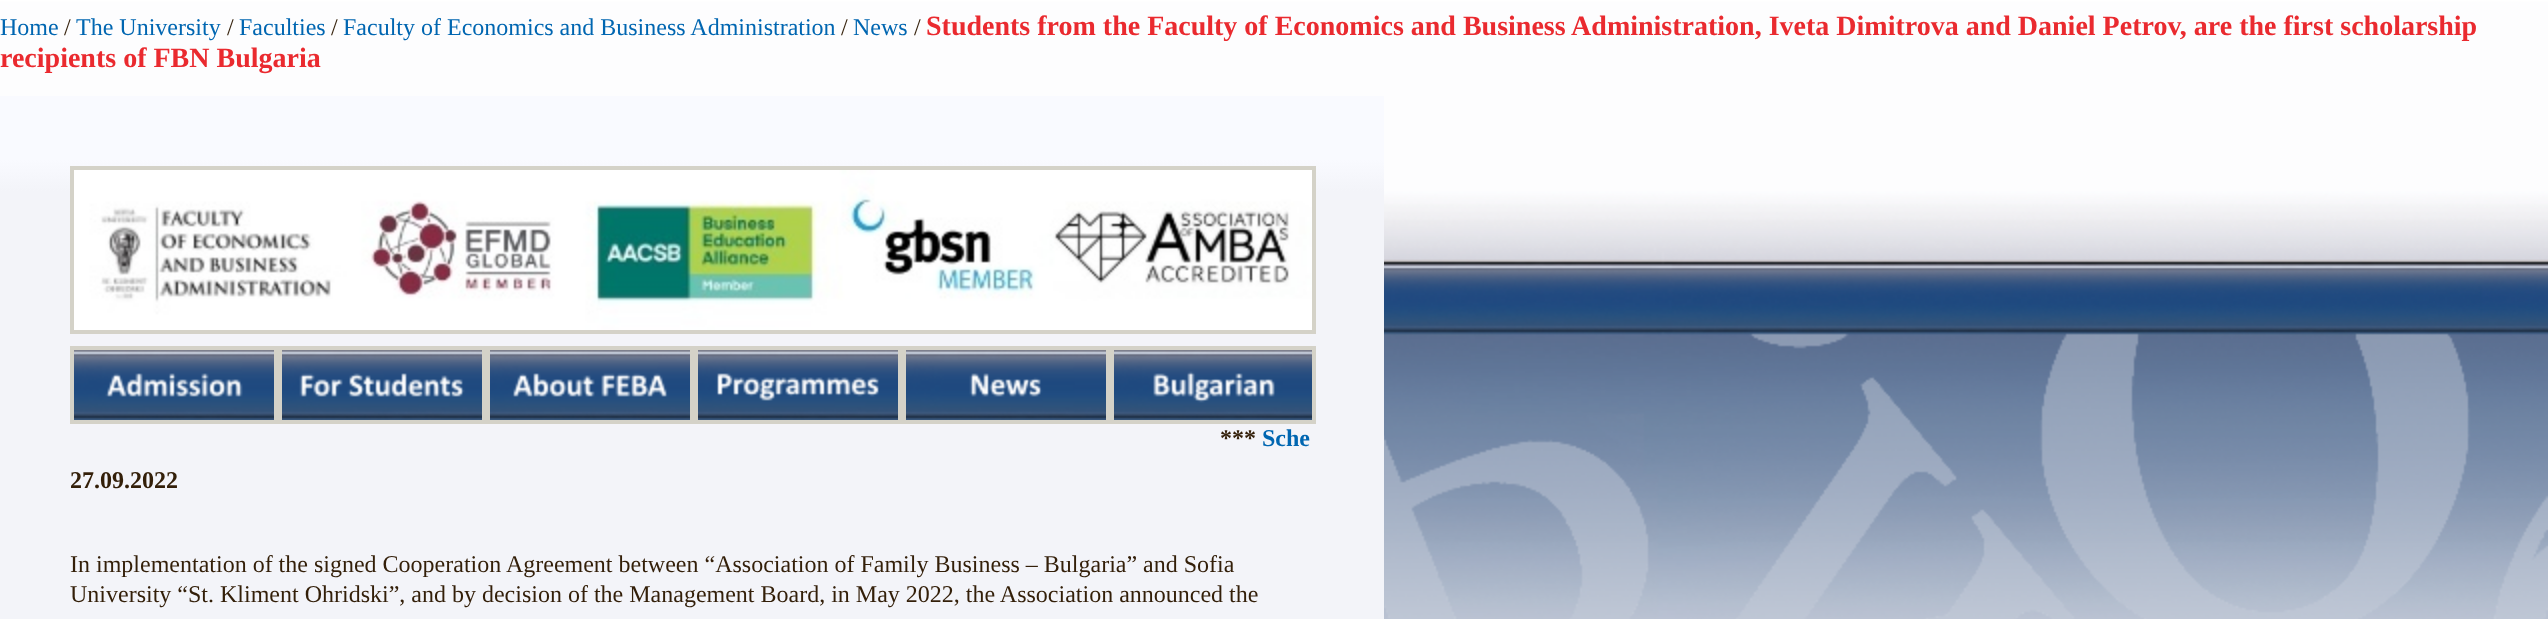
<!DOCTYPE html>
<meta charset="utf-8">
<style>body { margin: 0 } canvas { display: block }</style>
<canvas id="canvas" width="2548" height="619"></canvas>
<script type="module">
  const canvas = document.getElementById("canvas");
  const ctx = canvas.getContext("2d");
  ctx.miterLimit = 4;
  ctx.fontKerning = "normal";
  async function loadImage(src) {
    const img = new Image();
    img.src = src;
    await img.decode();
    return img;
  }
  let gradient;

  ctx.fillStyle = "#ffffff";
  ctx.fillRect(0, 0, 2548, 619);
  ctx.drawImage(await loadImage("img1.png"), 0, 0, 2548, 619);
  ctx.font = "24px Liberation Serif";
  ctx.fillStyle = "#0066b1";
  ctx.fillText("Home", 0, 35);
  ctx.fillStyle = "#331f09";
  ctx.fillText("/", 64, 35);
  ctx.fillStyle = "#0066b1";
  ctx.fillText("The University", 76, 35);
  ctx.fillStyle = "#331f09";
  ctx.fillText("/", 227, 35);
  ctx.fillStyle = "#0066b1";
  ctx.fillText("Faculties", 239, 35);
  ctx.fillStyle = "#331f09";
  ctx.fillText("/", 331, 35);
  ctx.fillStyle = "#0066b1";
  ctx.fillText("Faculty of Economics and Business Administration", 343, 35);
  ctx.fillStyle = "#331f09";
  ctx.fillText("/", 841, 35);
  ctx.fillStyle = "#0066b1";
  ctx.fillText("News", 853, 35);
  ctx.fillStyle = "#331f09";
  ctx.fillText("/", 914, 35);
  ctx.font = "bold 28px Liberation Serif";
  ctx.fillStyle = "#ea2a2f";
  ctx.fillText("Students from the Faculty of Economics and Business Administration, Iveta Dimitrova and Daniel Petrov, are the first scholarship", 926, 35);
  ctx.fillText("recipients of FBN Bulgaria", 0, 67);
  gradient = ctx.createLinearGradient(692, 96, 692, 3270);
  gradient.addColorStop(0.02, "#f9faff");
  gradient.addColorStop(0.03, "#f3f4f9");
  ctx.fillStyle = gradient;
  ctx.fillRect(0, 96, 1384, 523);
  ctx.strokeStyle = "#d4d2c8";
  ctx.lineWidth = 4;
  ctx.strokeRect(72, 168, 1242, 164);
  ctx.drawImage(await loadImage("img2.png"), 74, 170, 1238, 160);
  ctx.strokeRect(72, 348, 204, 74);
  ctx.drawImage(await loadImage("img3.png"), 74, 350, 200, 70);
  ctx.strokeRect(280, 348, 204, 74);
  ctx.drawImage(await loadImage("img4.png"), 282, 350, 200, 70);
  ctx.strokeRect(488, 348, 204, 74);
  ctx.drawImage(await loadImage("img5.png"), 490, 350, 200, 70);
  ctx.strokeRect(696, 348, 204, 74);
  ctx.drawImage(await loadImage("img6.png"), 698, 350, 200, 70);
  ctx.strokeRect(904, 348, 204, 74);
  ctx.drawImage(await loadImage("img7.png"), 906, 350, 200, 70);
  ctx.strokeRect(1112, 348, 202, 74);
  ctx.drawImage(await loadImage("img8.png"), 1114, 350, 198, 70);
  ctx.font = "bold 24px Liberation Serif";
  ctx.fillStyle = "#331f09";
  ctx.fillText("***", 1220, 446);
  ctx.fillStyle = "#0066b1";
  ctx.fillText("Sche", 1262, 446);
  ctx.fillStyle = "#331f09";
  ctx.fillText("27.09.2022", 70, 488);
  ctx.font = "24px Liberation Serif";
  ctx.fillText("In implementation of the signed Cooperation Agreement between “Association of Family Business – Bulgaria” and Sofia", 70, 572);
  ctx.fillText("University “St. Kliment Ohridski”, and by decision of the Management Board, in May 2022, the Association announced the", 70, 602);
</script>
